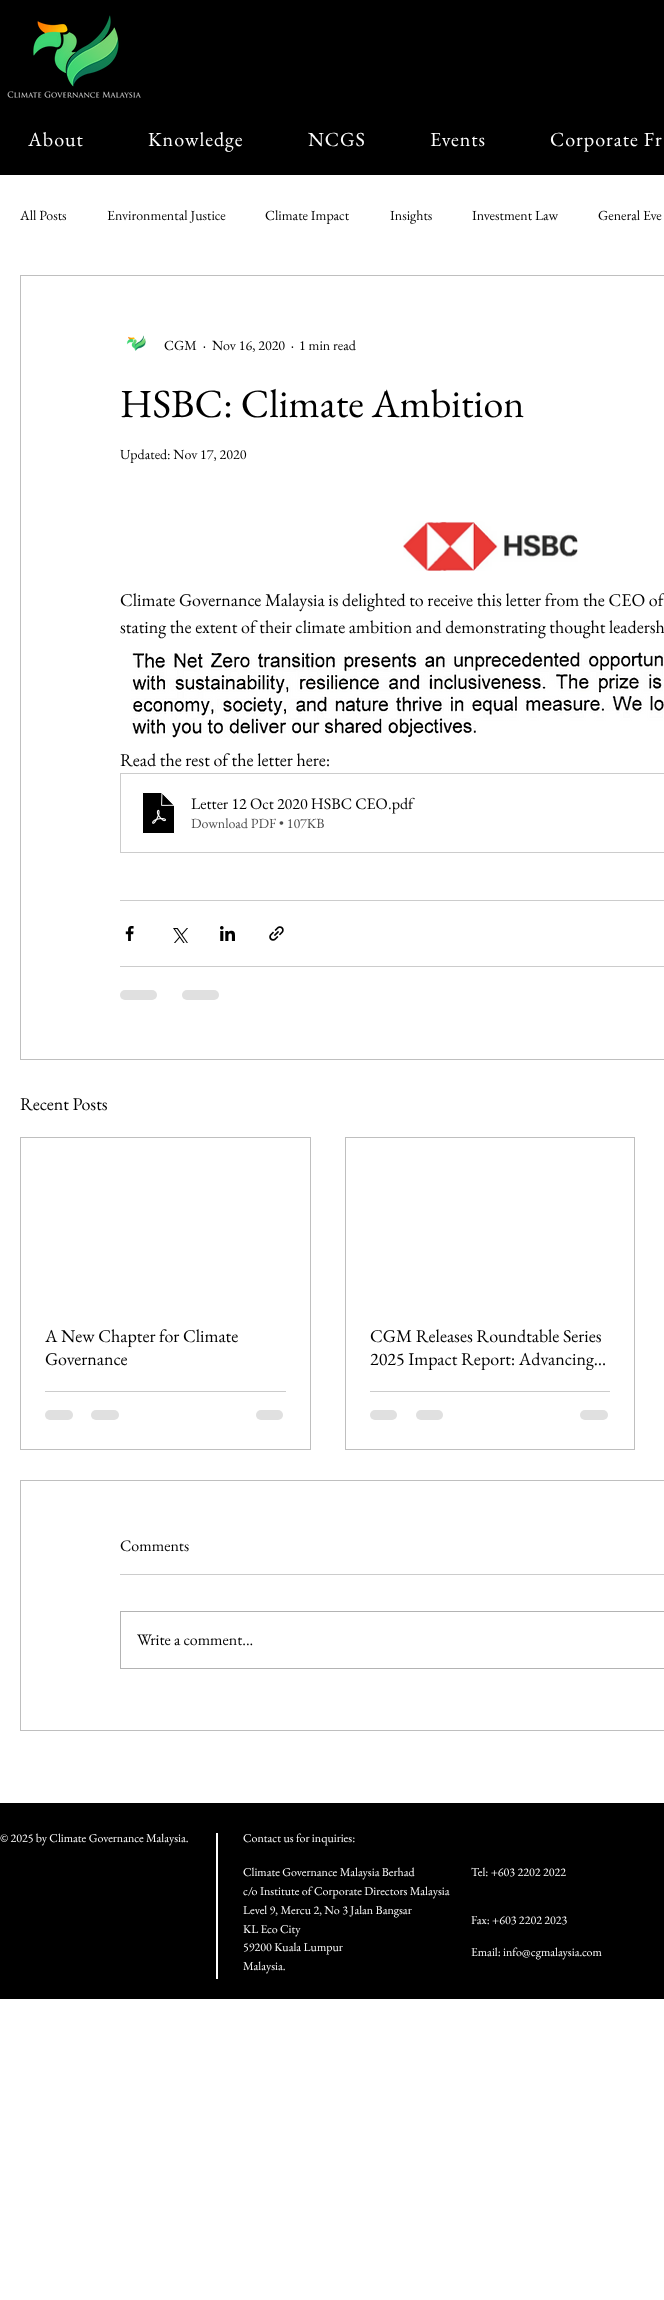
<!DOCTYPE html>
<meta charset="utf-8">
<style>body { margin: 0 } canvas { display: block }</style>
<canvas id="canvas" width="664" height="2300"></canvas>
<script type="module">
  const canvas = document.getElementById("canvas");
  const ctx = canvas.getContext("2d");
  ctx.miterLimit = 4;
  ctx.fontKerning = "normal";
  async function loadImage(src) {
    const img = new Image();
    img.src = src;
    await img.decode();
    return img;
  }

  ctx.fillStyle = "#ffffff";
  ctx.fillRect(0, 0, 664, 2300);
  ctx.fillStyle = "#000000";
  ctx.fillRect(0, 0, 664, 175);
  ctx.drawImage(await loadImage("img1.png"), 7, 15, 134, 83);
  ctx.letterSpacing = "1px";
  ctx.font = "20px EB Garamond";
  ctx.fillStyle = "#ffffff";
  ctx.fillText("About", 28, 146);
  ctx.fillText("Knowledge", 148, 146);
  ctx.fillText("NCGS", 308, 146);
  ctx.fillText("Events", 430, 146);
  ctx.fillText("Corporate Fr", 550, 146);
  ctx.letterSpacing = "0px";
  ctx.font = "14px EB Garamond";
  ctx.fillStyle = "#000000";
  ctx.fillText("All Posts", 20, 220);
  ctx.fillText("Environmental Justice", 107, 220);
  ctx.fillText("Climate Impact", 265, 220);
  ctx.fillText("Insights", 390, 220);
  ctx.fillText("Investment Law", 472, 220);
  ctx.fillText("General Eve", 598, 220);
  ctx.strokeStyle = "#bfbfbf";
  ctx.strokeRect(20.5, 275.5, 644, 784);
  ctx.drawImage(await loadImage("img2.png"), 126, 335, 20, 16);
  ctx.fillText("CGM", 164, 350);
  ctx.fillText("·", 203, 350);
  ctx.fillText("Nov 16, 2020", 212, 350);
  ctx.fillText("·", 291, 350);
  ctx.fillText("1 min read", 299, 350);
  ctx.font = "40px EB Garamond";
  ctx.fillText("HSBC: Climate Ambition", 120, 417);
  ctx.font = "14px EB Garamond";
  ctx.fillText("Updated: Nov 17, 2020", 120, 459);
  ctx.drawImage(await loadImage("img3.png"), 403, 521, 175, 50);
  ctx.font = "18px EB Garamond";
  ctx.fillText("Climate Governance Malaysia is delighted to receive this letter from the CEO of", 120, 606);
  ctx.fillText("stating the extent of their climate ambition and demonstrating thought leadersh", 120, 633);
  ctx.drawImage(await loadImage("img4.png"), 130, 652, 534, 86);
  ctx.fillText("Read the rest of the letter here:", 120, 766);
  ctx.strokeStyle = "#cccccc";
  ctx.strokeRect(120.5, 773.5, 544, 79);
  ctx.drawImage(await loadImage("img5.png"), 142, 792, 33, 42);
  ctx.font = "16px EB Garamond";
  ctx.fillText("Letter 12 Oct 2020 HSBC CEO", 191, 809);
  ctx.fillText(".pdf", 388, 809);
  ctx.font = "14px EB Garamond";
  ctx.fillStyle = "#4d4d4d";
  ctx.fillText("Download PDF • 107KB", 191, 828);
  ctx.fillStyle = "#cccccc";
  ctx.fillRect(120, 900, 544, 1);
  ctx.drawImage(await loadImage("img6.png"), 125, 926, 9, 15);
  ctx.drawImage(await loadImage("img7.png"), 173, 928, 15, 15);
  ctx.drawImage(await loadImage("img8.png"), 220, 926, 15, 15);
  ctx.drawImage(await loadImage("img9.png"), 269, 926, 15, 15);
  ctx.fillRect(120, 966, 544, 1);
  ctx.fillStyle = "#e0e0e0";
  ctx.beginPath();
  ctx.roundRect(120, 990, 37, 10, 5);
  ctx.fill();
  ctx.beginPath();
  ctx.roundRect(182, 990, 37, 10, 5);
  ctx.fill();
  ctx.font = "18px EB Garamond";
  ctx.fillStyle = "#000000";
  ctx.fillText("Recent Posts", 20, 1110);
  ctx.strokeStyle = "#bfbfbf";
  ctx.strokeRect(20.5, 1137.5, 290, 312);
  ctx.fillText("A New Chapter for Climate", 45, 1342);
  ctx.fillText("Governance", 45, 1365);
  ctx.fillStyle = "#cccccc";
  ctx.fillRect(45, 1391, 241, 1);
  ctx.fillStyle = "#e0e0e0";
  ctx.beginPath();
  ctx.roundRect(45, 1410, 28, 10, 5);
  ctx.fill();
  ctx.beginPath();
  ctx.roundRect(91, 1410, 28, 10, 5);
  ctx.fill();
  ctx.beginPath();
  ctx.roundRect(256, 1410, 27, 10, 5);
  ctx.fill();
  ctx.strokeRect(345.5, 1137.5, 289, 312);
  ctx.fillStyle = "#000000";
  ctx.fillText("CGM Releases Roundtable Series", 370, 1342);
  ctx.save();
  ctx.beginPath();
  ctx.rect(370, 1324, 240, 46);
  ctx.clip();
  ctx.fillText("2025 Impact Report: Advancing…", 370, 1365);
  ctx.restore();
  ctx.fillStyle = "#cccccc";
  ctx.fillRect(370, 1391, 240, 1);
  ctx.fillStyle = "#e0e0e0";
  ctx.beginPath();
  ctx.roundRect(370, 1410, 27, 10, 5);
  ctx.fill();
  ctx.beginPath();
  ctx.roundRect(416, 1410, 27, 10, 5);
  ctx.fill();
  ctx.beginPath();
  ctx.roundRect(580, 1410, 28, 10, 5);
  ctx.fill();
  ctx.strokeRect(20.5, 1480.5, 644, 250);
  ctx.font = "16px EB Garamond";
  ctx.fillStyle = "#000000";
  ctx.fillText("Comments", 120, 1551);
  ctx.fillStyle = "#cccccc";
  ctx.fillRect(120, 1574, 544, 1);
  ctx.strokeStyle = "#b3b3b3";
  ctx.strokeRect(120.5, 1611.5, 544, 57);
  ctx.fillStyle = "#000000";
  ctx.fillText("Write a comment...", 137, 1645);
  ctx.fillRect(0, 1803, 664, 196);
  ctx.font = "12px EB Garamond";
  ctx.fillStyle = "#ffffff";
  ctx.fillText("© 2025 by Climate Governance Malaysia.", 0, 1842);
  ctx.fillRect(216, 1833, 2, 146);
  ctx.fillText("Contact us for inquiries:", 243, 1842);
  ctx.fillText("Climate Governance Malaysia Berhad", 243, 1876);
  ctx.fillText("c/o Institute of Corporate Directors Malaysia", 243, 1895);
  ctx.fillText("Level 9, Mercu 2, No 3 Jalan Bangsar", 243, 1914);
  ctx.fillText("KL Eco City", 243, 1933);
  ctx.fillText("59200 Kuala Lumpur", 243, 1951);
  ctx.fillText("Malaysia.", 243, 1970);
  ctx.fillText("Tel: +603 2202 2022", 471, 1876);
  ctx.fillText("Fax: +603 2202 2023", 471, 1924);
  ctx.fillText("Email: info@cgmalaysia.com", 471, 1956);
</script>
